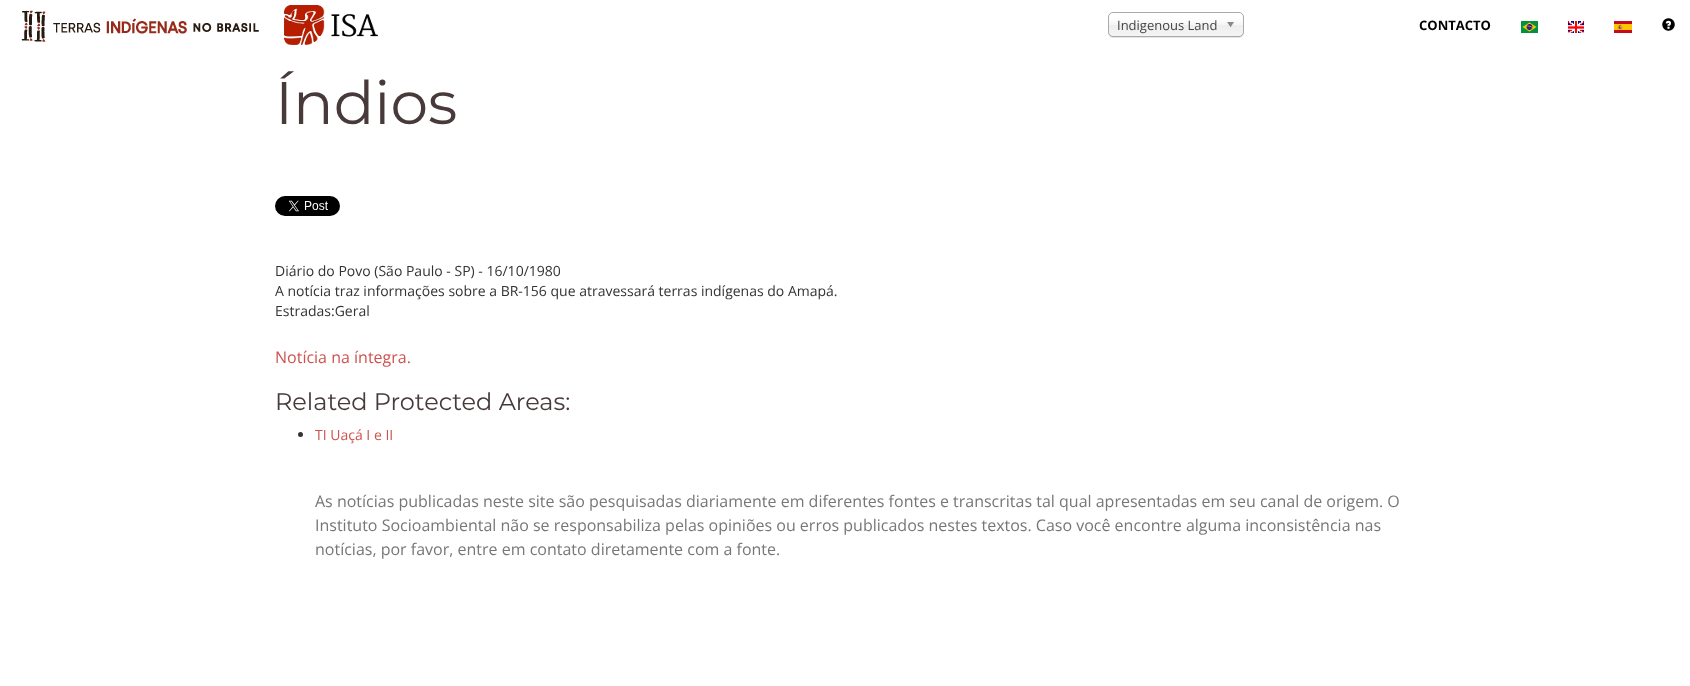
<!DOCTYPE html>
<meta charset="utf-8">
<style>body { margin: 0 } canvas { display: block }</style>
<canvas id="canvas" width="1690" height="686"></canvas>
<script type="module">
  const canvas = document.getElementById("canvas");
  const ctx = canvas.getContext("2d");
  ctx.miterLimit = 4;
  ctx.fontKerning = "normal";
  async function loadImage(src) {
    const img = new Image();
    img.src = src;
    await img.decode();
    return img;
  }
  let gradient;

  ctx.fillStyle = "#ffffff";
  ctx.fillRect(0, 0, 1690, 686);
  ctx.drawImage(await loadImage("img1.png"), 21, 10, 238, 32);
  ctx.drawImage(await loadImage("img2.png"), 284, 5, 94, 40);
  ctx.fillStyle = "rgba(0, 0, 0, 0.1)";
  ctx.filter = "blur(0.5px)";
  ctx.beginPath();
  ctx.roundRect(1108, 13, 136, 25, 5);
  ctx.fill();
  ctx.filter = "none";
  gradient = ctx.createLinearGradient(1176, 13, 1176, 36);
  gradient.addColorStop(0.2, "#ffffff");
  gradient.addColorStop(0.5, "#f6f6f6");
  gradient.addColorStop(0.52, "#eeeeee");
  gradient.addColorStop(1, "#f4f4f4");
  ctx.fillStyle = gradient;
  ctx.beginPath();
  ctx.roundRect(1109, 13, 134, 23, 4);
  ctx.fill();
  ctx.beginPath();
  ctx.roundRect(1108.5, 12.5, 135, 24, 4.5);
  ctx.strokeStyle = "#aaaaaa";
  ctx.stroke();
  ctx.font = "13px Open Sans";
  ctx.fillStyle = "#444444";
  ctx.fillText("Indigenous Land", 1117, 30);
  ctx.drawImage(await loadImage("img3.png"), 1227, 22, 7, 6);
  ctx.font = "bold 13px Open Sans";
  ctx.fillStyle = "#000000";
  ctx.fillText("CONTACTO", 1419, 30);
  ctx.drawImage(await loadImage("img4.png"), 1521, 21, 17, 12);
  ctx.drawImage(await loadImage("img5.png"), 1568, 21, 16, 12);
  ctx.drawImage(await loadImage("img6.png"), 1614, 21, 18, 12);
  ctx.drawImage(await loadImage("img7.png"), 1662, 18, 13, 13);
  ctx.font = "100 60px Montserrat";
  ctx.fillStyle = "#483a3a";
  ctx.fillText("Índios", 275, 124);
  ctx.drawImage(await loadImage("img8.png"), 275, 196, 65, 20);
  ctx.font = "14px Open Sans";
  ctx.fillStyle = "#333333";
  ctx.fillText("Diário do Povo (São Paulo - SP) - 16/10/1980", 275, 276);
  ctx.fillText("A notícia traz informações sobre a BR-156 que atravessará terras indígenas do Amapá.", 275, 296);
  ctx.fillText("Estradas:Geral", 275, 316);
  ctx.font = "16px Open Sans";
  ctx.fillStyle = "#ce534d";
  ctx.fillText("Notícia na íntegra.", 275, 363);
  ctx.font = "100 24px Montserrat";
  ctx.fillStyle = "#483a3a";
  ctx.fillText("Related Protected Areas:", 275, 410);
  ctx.fillStyle = "#333333";
  ctx.beginPath();
  ctx.arc(300.5, 434.5, 2.5, 0, Math.PI * 2);
  ctx.fill();
  ctx.font = "14px Open Sans";
  ctx.fillStyle = "#ce534d";
  ctx.fillText("TI Uaçá I e II", 315, 440);
  ctx.font = "16px Open Sans";
  ctx.fillStyle = "#777777";
  ctx.fillText("As notícias publicadas neste site são pesquisadas diariamente em diferentes fontes e transcritas tal qual apresentadas em seu canal de origem. O", 315, 507);
  ctx.fillText("Instituto Socioambiental não se responsabiliza pelas opiniões ou erros publicados nestes textos. Caso você encontre alguma inconsistência nas", 315, 531);
  ctx.fillText("notícias, por favor, entre em contato diretamente com a fonte.", 315, 555);
</script>
